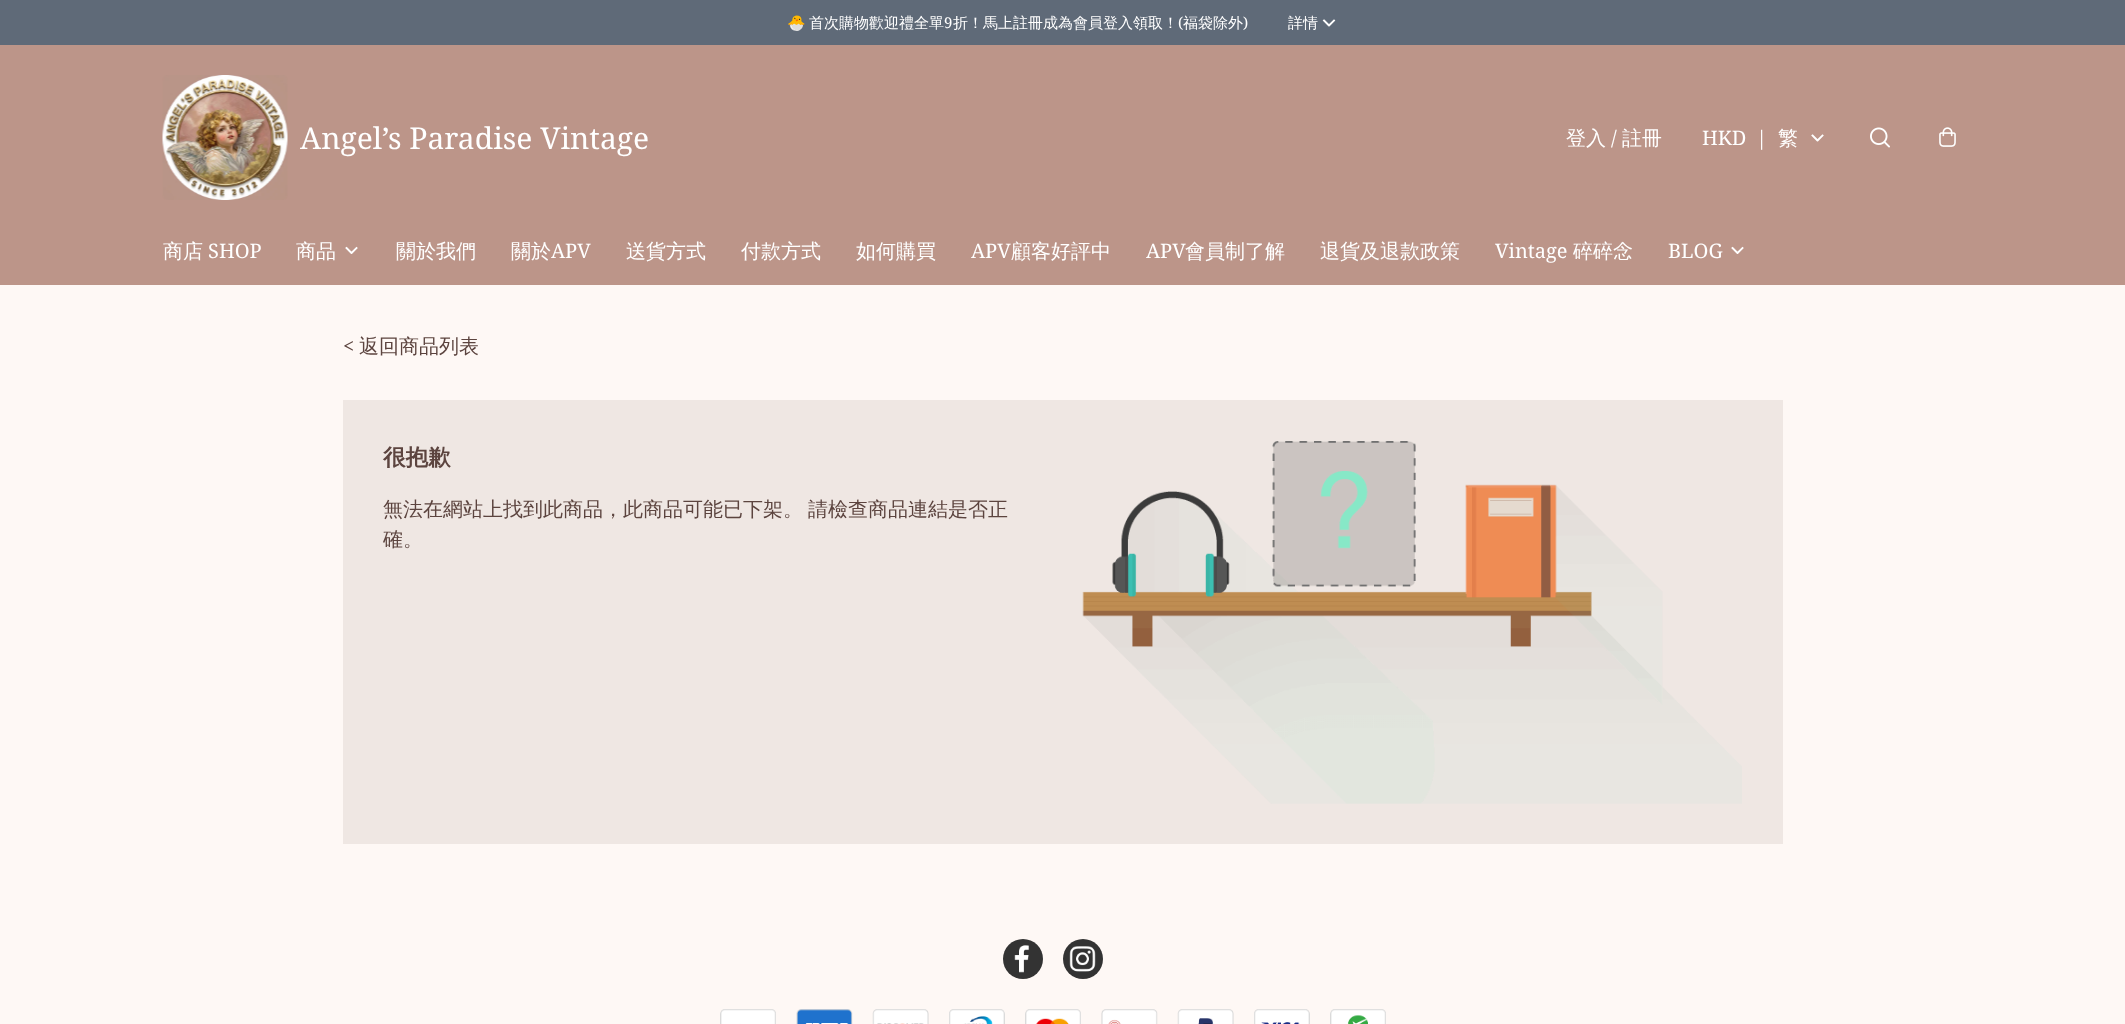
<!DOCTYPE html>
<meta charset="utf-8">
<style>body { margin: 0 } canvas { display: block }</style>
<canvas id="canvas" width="2125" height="1024"></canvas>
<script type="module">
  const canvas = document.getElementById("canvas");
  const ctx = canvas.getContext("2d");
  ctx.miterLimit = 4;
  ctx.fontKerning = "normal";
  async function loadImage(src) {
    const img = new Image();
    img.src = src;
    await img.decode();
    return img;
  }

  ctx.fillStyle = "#fef8f5";
  ctx.fillRect(0, 0, 2125, 1024);
  ctx.fillStyle = "#5f6a78";
  ctx.fillRect(0, 0, 2125, 45);
  ctx.font = "15px Noto Color Emoji";
  ctx.fillStyle = "#ffffff";
  ctx.fillText("🐣", 787, 28);
  ctx.font = "500 15px WenQuanYi Zen Hei";
  ctx.fillText("首次購物歡迎禮全單", 809, 28);
  ctx.font = "15px Noto Serif";
  ctx.fillText("9", 944, 28);
  ctx.font = "500 15px WenQuanYi Zen Hei";
  ctx.fillText("折！馬上註冊成為會員登入領取！", 953, 28);
  ctx.font = "15px Noto Serif";
  ctx.fillText("(", 1178, 28);
  ctx.font = "500 15px WenQuanYi Zen Hei";
  ctx.fillText("福袋除外", 1183, 28);
  ctx.font = "15px Noto Serif";
  ctx.fillText(")", 1243, 28);
  ctx.font = "500 15px WenQuanYi Zen Hei";
  ctx.fillText("詳情", 1288, 28);
  ctx.beginPath();
  ctx.moveTo(1324, 20.5);
  ctx.lineTo(1329, 25.5);
  ctx.lineTo(1334, 20.5);
  ctx.strokeStyle = "#ffffff";
  ctx.lineWidth = 1.9;
  ctx.lineCap = "square";
  ctx.lineJoin = "round";
  ctx.stroke();
  ctx.fillStyle = "#bc9589";
  ctx.fillRect(0, 45, 2125, 240);
  ctx.drawImage(await loadImage("img1.png"), 162, 75, 126, 125);
  ctx.font = "30px Noto Serif";
  ctx.fillStyle = "#ffffff";
  ctx.fillText("Angel’s Paradise Vintage", 300, 149);
  ctx.font = "500 20px WenQuanYi Zen Hei";
  ctx.fillText("登入", 1566, 145);
  ctx.font = "20px Noto Serif";
  ctx.fillText("/", 1611, 145);
  ctx.font = "500 20px WenQuanYi Zen Hei";
  ctx.fillText("註冊", 1622, 145);
  ctx.font = "20px Noto Serif";
  ctx.fillText("HKD", 1702, 145);
  ctx.fillText("|", 1756, 145);
  ctx.font = "500 20px WenQuanYi Zen Hei";
  ctx.fillText("繁", 1778, 145);
  ctx.beginPath();
  ctx.moveTo(1812.5, 135.5);
  ctx.lineTo(1817.5, 140.5);
  ctx.lineTo(1822.5, 135.5);
  ctx.stroke();
  ctx.drawImage(await loadImage("img2.png"), 1870, 127, 20, 21);
  ctx.drawImage(await loadImage("img3.png"), 1939, 127, 17, 20);
  ctx.fillText("商店", 163, 258);
  ctx.font = "20px Noto Serif";
  ctx.fillText("SHOP", 208, 258);
  ctx.font = "500 20px WenQuanYi Zen Hei";
  ctx.fillText("商品", 296, 258);
  ctx.beginPath();
  ctx.moveTo(346.5, 248);
  ctx.lineTo(351.5, 253);
  ctx.lineTo(356.5, 248);
  ctx.stroke();
  ctx.fillText("關於我們", 396, 258);
  ctx.fillText("關於", 511, 258);
  ctx.font = "20px Noto Serif";
  ctx.fillText("APV", 551, 258);
  ctx.font = "500 20px WenQuanYi Zen Hei";
  ctx.fillText("送貨方式", 626, 258);
  ctx.fillText("付款方式", 741, 258);
  ctx.fillText("如何購買", 856, 258);
  ctx.font = "20px Noto Serif";
  ctx.fillText("APV", 971, 258);
  ctx.font = "500 20px WenQuanYi Zen Hei";
  ctx.fillText("顧客好評中", 1011, 258);
  ctx.font = "20px Noto Serif";
  ctx.fillText("APV", 1146, 258);
  ctx.font = "500 20px WenQuanYi Zen Hei";
  ctx.fillText("會員制了解", 1185, 258);
  ctx.fillText("退貨及退款政策", 1320, 258);
  ctx.font = "20px Noto Serif";
  ctx.fillText("Vintage", 1495, 258);
  ctx.font = "500 20px WenQuanYi Zen Hei";
  ctx.fillText("碎碎念", 1573, 258);
  ctx.font = "20px Noto Serif";
  ctx.fillText("BLOG", 1668, 258);
  ctx.beginPath();
  ctx.moveTo(1732.5, 248);
  ctx.lineTo(1737.5, 253);
  ctx.lineTo(1742.5, 248);
  ctx.stroke();
  ctx.fillStyle = "#5c443f";
  ctx.fillText("<", 343, 353);
  ctx.font = "500 20px WenQuanYi Zen Hei";
  ctx.fillText("返回商品列表", 359, 353);
  ctx.fillStyle = "#efe7e3";
  ctx.fillRect(343, 400, 1440, 444);
  ctx.font = "bold 22.5px WenQuanYi Zen Hei";
  ctx.fillStyle = "#5c443f";
  ctx.fillText("很抱歉", 383, 465);
  ctx.wordSpacing = "-1px";
  ctx.font = "500 20px WenQuanYi Zen Hei";
  ctx.fillText("無法在網站上找到此商品，此商品可能已下架。 請檢查商品連結是否正", 383, 516);
  ctx.wordSpacing = "0px";
  ctx.fillText("確。", 383, 546);
  ctx.drawImage(await loadImage("img4.png"), 1082, 441, 660, 363);
  ctx.fillStyle = "#333333";
  ctx.beginPath();
  ctx.arc(1023, 959, 20, 0, Math.PI * 2);
  ctx.fill();
  ctx.drawImage(await loadImage("img5.png"), 1014, 945, 15, 28);
  ctx.beginPath();
  ctx.arc(1083, 959, 20, 0, Math.PI * 2);
  ctx.fill();
  ctx.drawImage(await loadImage("img6.png"), 1069, 946, 27, 26);
  ctx.drawImage(await loadImage("img7.png"), 720, 1009, 56, 15);
  ctx.drawImage(await loadImage("img8.png"), 796, 1009, 57, 15);
  ctx.drawImage(await loadImage("img9.png"), 872, 1009, 57, 15);
  ctx.drawImage(await loadImage("img10.png"), 949, 1009, 56, 15);
  ctx.drawImage(await loadImage("img11.png"), 1025, 1009, 56, 15);
  ctx.drawImage(await loadImage("img12.png"), 1101, 1009, 57, 15);
  ctx.drawImage(await loadImage("img13.png"), 1177, 1009, 57, 15);
  ctx.drawImage(await loadImage("img14.png"), 1254, 1009, 56, 15);
  ctx.drawImage(await loadImage("img15.png"), 1330, 1009, 56, 15);
</script>
